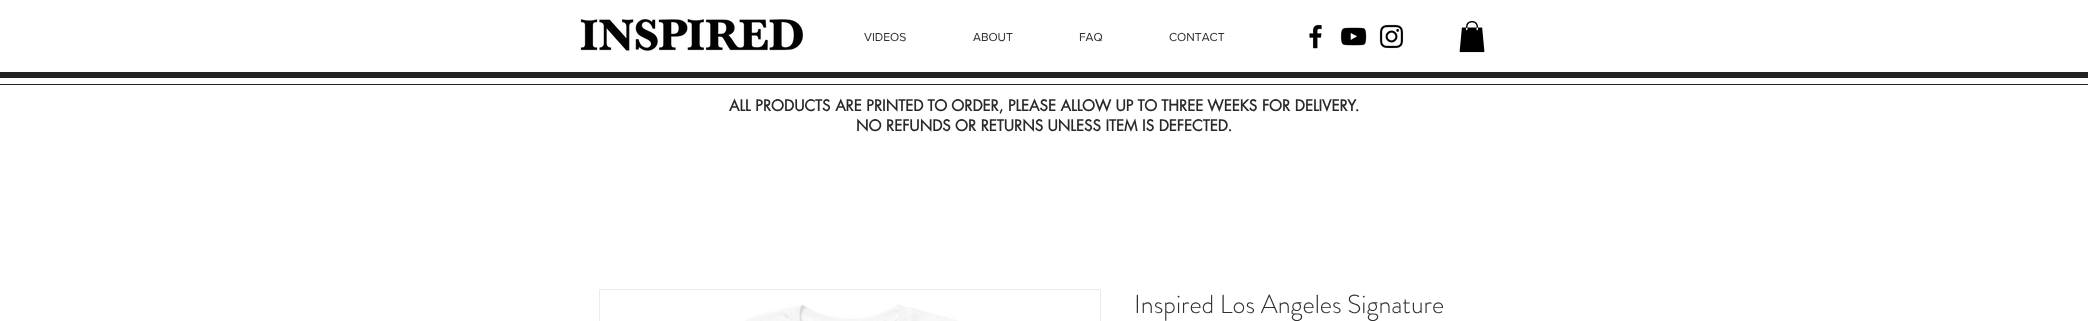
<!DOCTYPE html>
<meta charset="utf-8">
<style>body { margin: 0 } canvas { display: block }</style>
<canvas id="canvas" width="2088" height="321"></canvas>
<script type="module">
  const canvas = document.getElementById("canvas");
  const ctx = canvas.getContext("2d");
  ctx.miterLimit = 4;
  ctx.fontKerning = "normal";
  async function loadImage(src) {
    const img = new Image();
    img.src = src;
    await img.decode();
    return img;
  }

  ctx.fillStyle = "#ffffff";
  ctx.fillRect(0, 0, 2088, 321);
  ctx.drawImage(await loadImage("img1.png"), 580, 19, 224, 32);
  ctx.font = "12px 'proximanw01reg'";
  ctx.fillStyle = "#2e302f";
  ctx.fillText("VIDEOS", 864, 41);
  ctx.fillText("ABOUT", 973, 41);
  ctx.fillText("FAQ", 1079, 41);
  ctx.fillText("CONTACT", 1169, 41);
  ctx.drawImage(await loadImage("img2.png"), 1309, 24, 13, 25);
  ctx.drawImage(await loadImage("img3.png"), 1340, 27, 27, 19);
  ctx.drawImage(await loadImage("img4.png"), 1379, 24, 25, 25);
  ctx.drawImage(await loadImage("img5.png"), 1459, 21, 26, 32);
  ctx.fillStyle = "#222222";
  ctx.fillRect(0, 72, 2088, 6);
  ctx.fillRect(0, 84, 2088, 1);
  ctx.font = "bold 15px futura";
  ctx.fillStyle = "#292929";
  ctx.fillText("ALL PRODUCTS ARE PRINTED TO ORDER, PLEASE ALLOW UP TO THREE WEEKS FOR DELIVERY.", 729, 111);
  ctx.fillText("NO REFUNDS OR RETURNS UNLESS ITEM IS DEFECTED.", 856, 131);
  ctx.strokeStyle = "#e7eeea";
  ctx.strokeRect(599.5, 289.5, 501, 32);
  ctx.drawImage(await loadImage("img6.png"), 745, 304, 213, 17);
  ctx.font = "300 26px 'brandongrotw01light'";
  ctx.fillStyle = "#2e302f";
  ctx.fillText("Inspired Los Angeles Signature", 1134, 313);
</script>
